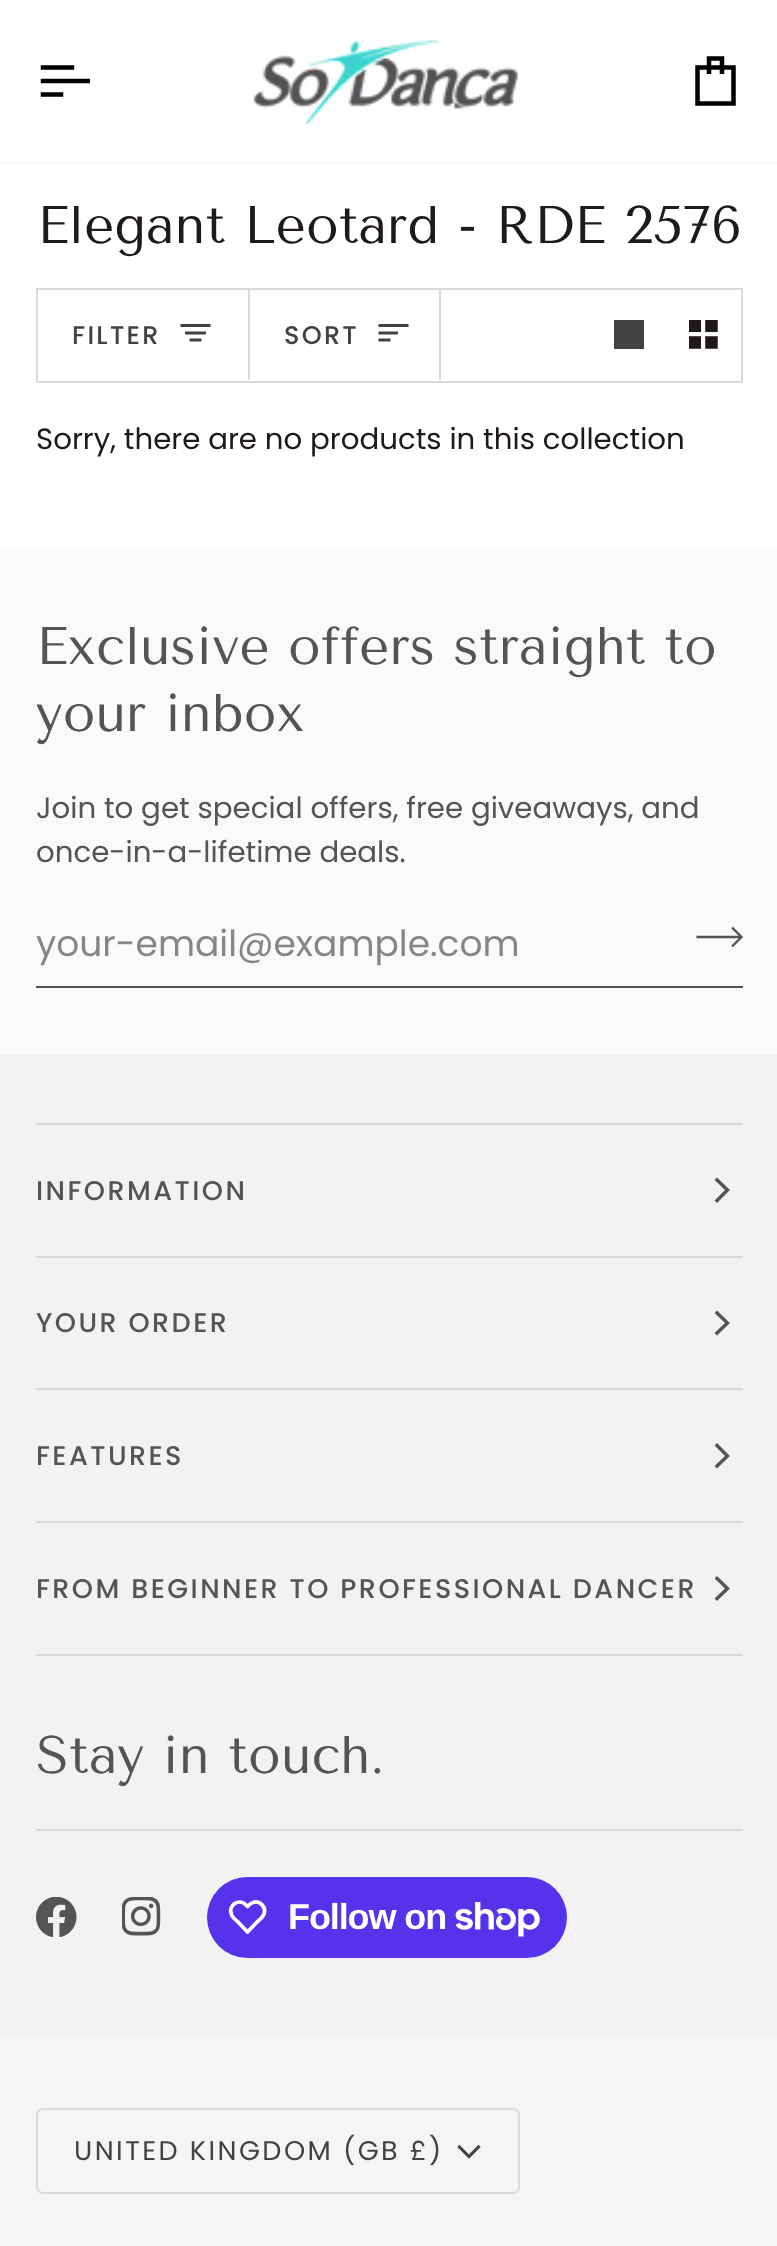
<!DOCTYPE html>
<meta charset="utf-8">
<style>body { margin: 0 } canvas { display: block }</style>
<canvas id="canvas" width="777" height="2246"></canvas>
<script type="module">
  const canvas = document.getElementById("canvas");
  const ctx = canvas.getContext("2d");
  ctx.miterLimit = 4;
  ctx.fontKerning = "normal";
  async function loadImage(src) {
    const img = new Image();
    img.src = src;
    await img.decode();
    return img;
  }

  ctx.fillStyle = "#ffffff";
  ctx.fillRect(0, 0, 777, 2246);
  ctx.fillStyle = "#f7f5f4";
  ctx.fillRect(0, 162, 777, 2);
  ctx.save();
  ctx.beginPath();
  ctx.rect(36, 54, 54, 54);
  ctx.clip();
  ctx.beginPath();
  ctx.moveTo(72, 67.5);
  ctx.lineTo(43, 67.5);
  ctx.moveTo(88, 81);
  ctx.lineTo(43, 81);
  ctx.moveTo(61, 94.5);
  ctx.lineTo(43, 94.5);
  ctx.strokeStyle = "#000000";
  ctx.lineWidth = 4.5;
  ctx.lineCap = "square";
  ctx.stroke();
  ctx.restore();
  ctx.drawImage(await loadImage("img1.png"), 253, 40, 266, 84);
  ctx.beginPath();
  ctx.moveTo(697.5, 67.5);
  ctx.lineTo(733.5, 67.5);
  ctx.lineTo(733.5, 103.5);
  ctx.lineTo(697.5, 103.5);
  ctx.closePath();
  ctx.moveTo(709, 74);
  ctx.lineTo(709, 58.5);
  ctx.lineTo(722, 58.5);
  ctx.lineTo(722, 74);
  ctx.strokeStyle = "#000000";
  ctx.lineWidth = 4.5;
  ctx.stroke();
  ctx.font = "52.9px Tenor Sans";
  ctx.fillStyle = "#1f1919";
  ctx.fillText("Elegant Leotard - RDE 2576", 37, 243);
  ctx.strokeStyle = "#d9d9d9";
  ctx.lineWidth = 2;
  ctx.strokeRect(37, 289, 705, 93);
  ctx.fillStyle = "#d9d9d9";
  ctx.fillRect(248, 290, 2, 90);
  ctx.letterSpacing = "2.25px";
  ctx.font = "500 25.5px Poppins";
  ctx.fillStyle = "#424242";
  ctx.fillText("FILTER", 72, 344);
  ctx.beginPath();
  ctx.moveTo(209, 325.5);
  ctx.lineTo(182, 325.5);
  ctx.moveTo(204.5, 333);
  ctx.lineTo(186.5, 333);
  ctx.moveTo(200, 340);
  ctx.lineTo(191, 340);
  ctx.strokeStyle = "#424242";
  ctx.lineWidth = 3;
  ctx.lineCap = "square";
  ctx.stroke();
  ctx.fillStyle = "#d9d9d9";
  ctx.fillRect(439, 290, 2, 90);
  ctx.fillStyle = "#424242";
  ctx.fillText("SORT", 284, 344);
  ctx.beginPath();
  ctx.moveTo(407, 325.5);
  ctx.lineTo(380, 325.5);
  ctx.moveTo(396.5, 333);
  ctx.lineTo(380, 333);
  ctx.moveTo(389, 340);
  ctx.lineTo(380, 340);
  ctx.stroke();
  ctx.fillRect(614, 320, 30, 29);
  ctx.drawImage(await loadImage("img2.png"), 689, 320, 29, 29);
  ctx.letterSpacing = "0px";
  ctx.font = "29.25px Poppins";
  ctx.fillStyle = "#1f1919";
  ctx.fillText("Sorry, there are no products in this collection", 36, 449);
  ctx.fillStyle = "#f2f2f2";
  ctx.fillRect(0, 1055, 777, 981);
  ctx.fillStyle = "#fafafa";
  ctx.fillRect(0, 547, 777, 508);
  ctx.font = "52.9px Tenor Sans";
  ctx.fillStyle = "#545454";
  ctx.fillText("Exclusive offers straight to", 36, 664);
  ctx.fillText("your inbox", 36, 731);
  ctx.font = "29.25px Poppins";
  ctx.fillText("Join to get special offers, free giveaways, and", 36, 818);
  ctx.fillText("once-in-a-lifetime deals.", 36, 862);
  ctx.fillRect(36, 986, 707, 2);
  ctx.font = "36px Poppins";
  ctx.fillStyle = "#868686";
  ctx.fillText("your-email@example.com", 36, 956);
  ctx.beginPath();
  ctx.moveTo(732, 927.5);
  ctx.lineTo(741.5, 937);
  ctx.lineTo(732, 946.5);
  ctx.moveTo(696.5, 937);
  ctx.lineTo(741.5, 937);
  ctx.strokeStyle = "#545454";
  ctx.lineWidth = 2.4;
  ctx.lineCap = "butt";
  ctx.stroke();
  ctx.fillStyle = "#d8d8d8";
  ctx.fillRect(36, 1123, 707, 2);
  ctx.fillRect(36, 1256, 707, 2);
  ctx.letterSpacing = "2.45px";
  ctx.font = "500 27px Poppins";
  ctx.fillStyle = "#545454";
  ctx.fillText("INFORMATION", 36, 1200);
  ctx.beginPath();
  ctx.moveTo(717, 1200.5);
  ctx.lineTo(727.5, 1190);
  ctx.lineTo(717, 1180);
  ctx.lineWidth = 3.4;
  ctx.lineCap = "square";
  ctx.stroke();
  ctx.fillStyle = "#d8d8d8";
  ctx.fillRect(36, 1388, 707, 2);
  ctx.fillStyle = "#545454";
  ctx.fillText("YOUR ORDER", 36, 1332);
  ctx.beginPath();
  ctx.moveTo(717, 1333);
  ctx.lineTo(727.5, 1323);
  ctx.lineTo(717, 1313);
  ctx.stroke();
  ctx.fillStyle = "#d8d8d8";
  ctx.fillRect(36, 1521, 707, 2);
  ctx.fillStyle = "#545454";
  ctx.fillText("FEATURES", 36, 1465);
  ctx.beginPath();
  ctx.moveTo(717, 1466);
  ctx.lineTo(727.5, 1456);
  ctx.lineTo(717, 1445.5);
  ctx.stroke();
  ctx.fillStyle = "#d8d8d8";
  ctx.fillRect(36, 1654, 707, 2);
  ctx.fillStyle = "#545454";
  ctx.fillText("FROM BEGINNER TO PROFESSIONAL DANCER", 36, 1598);
  ctx.beginPath();
  ctx.moveTo(717, 1598.5);
  ctx.lineTo(727.5, 1588.5);
  ctx.lineTo(717, 1578.5);
  ctx.stroke();
  ctx.letterSpacing = "0px";
  ctx.font = "52.9px Tenor Sans";
  ctx.fillText("Stay in touch.", 36, 1773);
  ctx.fillStyle = "#d8d8d8";
  ctx.fillRect(36, 1829, 707, 2);
  ctx.drawImage(await loadImage("img3.png"), 36, 1897, 41, 40);
  ctx.drawImage(await loadImage("img4.png"), 122, 1897, 39, 39);
  ctx.fillStyle = "#5433eb";
  ctx.beginPath();
  ctx.roundRect(207, 1877, 360, 81, 40.5);
  ctx.fill();
  ctx.beginPath();
  ctx.moveTo(245.5, 1904.5);
  ctx.lineTo(247.5, 1906.5);
  ctx.bezierCurveTo(249, 1905, 250.5, 1903, 253, 1902.5);
  ctx.bezierCurveTo(260, 1900, 266.5, 1907.5, 264, 1914);
  ctx.bezierCurveTo(262.5, 1917.5, 259.5, 1920, 257, 1922);
  ctx.lineTo(247.5, 1932);
  ctx.lineTo(238, 1922);
  ctx.bezierCurveTo(235.5, 1920, 232.5, 1917.5, 231.5, 1914.5);
  ctx.bezierCurveTo(227.5, 1905.5, 239, 1898, 245.5, 1904.5);
  ctx.closePath();
  ctx.strokeStyle = "#ffffff";
  ctx.lineWidth = 3.8;
  ctx.lineCap = "butt";
  ctx.lineJoin = "round";
  ctx.stroke();
  ctx.letterSpacing = "-1.1px";
  ctx.font = "bold 36px Liberation Sans";
  ctx.fillStyle = "#ffffff";
  ctx.fillText("Follow on", 288, 1929);
  ctx.drawImage(await loadImage("img5.png"), 455, 1902, 85, 35);
  ctx.fillStyle = "#f5f5f5";
  ctx.fillRect(0, 2036, 777, 210);
  ctx.beginPath();
  ctx.roundRect(37, 2109, 482, 84, 6);
  ctx.strokeStyle = "#dadada";
  ctx.lineWidth = 2;
  ctx.lineJoin = "miter";
  ctx.stroke();
  ctx.letterSpacing = "2.45px";
  ctx.font = "27px Poppins";
  ctx.fillStyle = "#424242";
  ctx.fillText("UNITED KINGDOM (GB £)", 74, 2160);
  ctx.beginPath();
  ctx.moveTo(459.5, 2147);
  ctx.lineTo(469, 2156.5);
  ctx.lineTo(478.5, 2147);
  ctx.strokeStyle = "#424242";
  ctx.lineWidth = 3.1;
  ctx.lineCap = "square";
  ctx.stroke();
</script>
